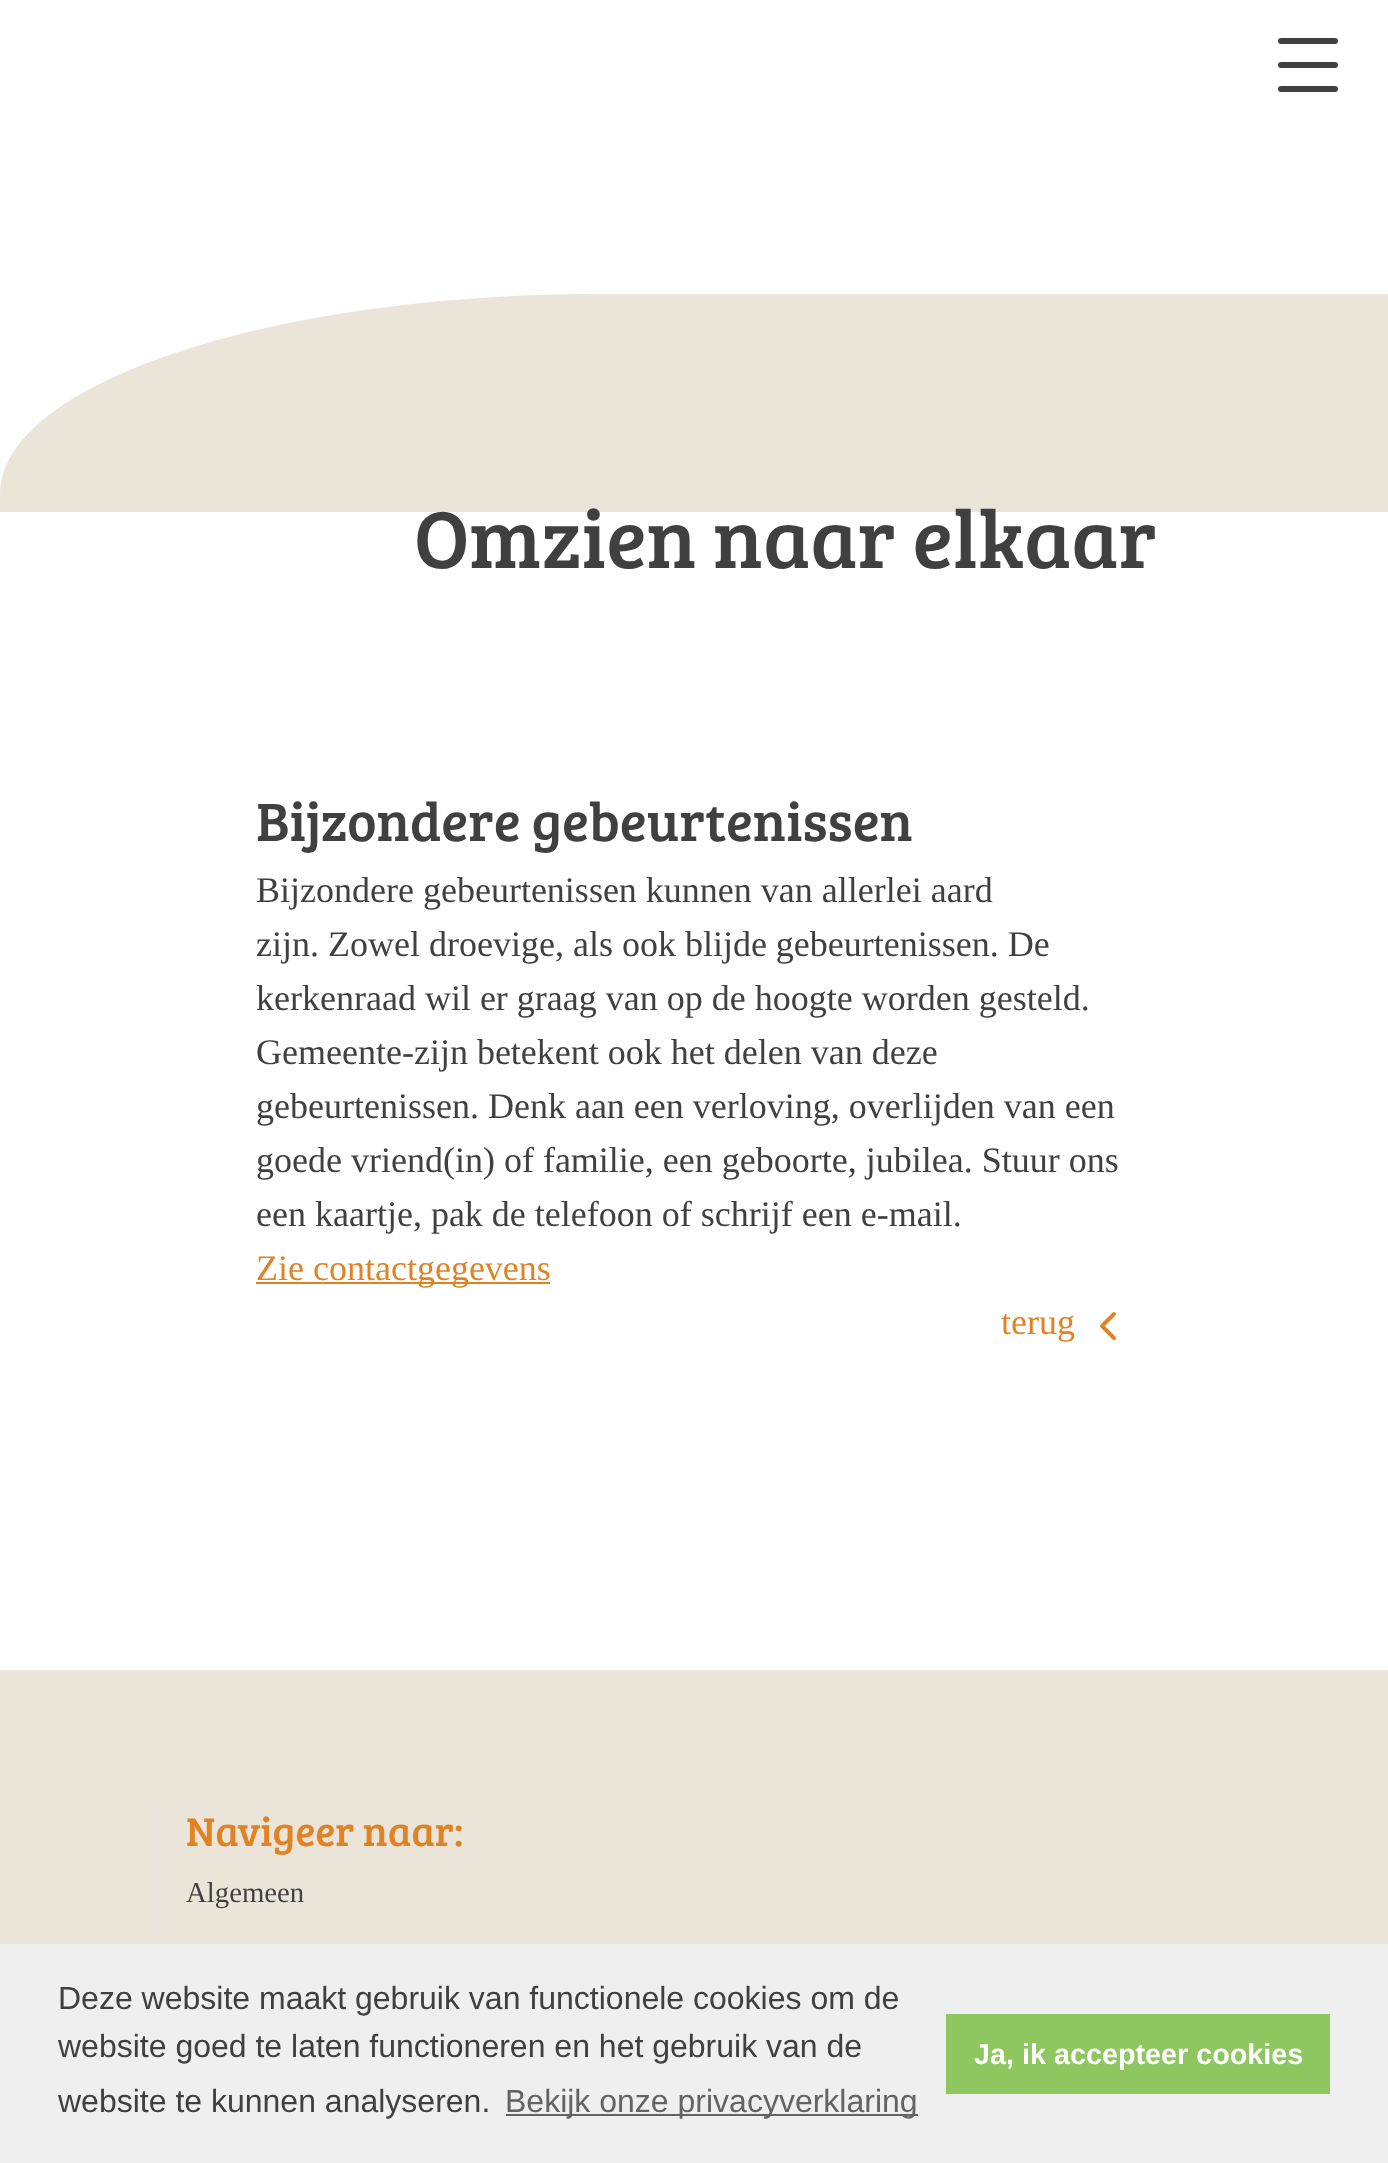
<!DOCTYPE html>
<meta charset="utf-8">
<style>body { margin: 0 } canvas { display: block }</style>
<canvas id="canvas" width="1388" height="2163"></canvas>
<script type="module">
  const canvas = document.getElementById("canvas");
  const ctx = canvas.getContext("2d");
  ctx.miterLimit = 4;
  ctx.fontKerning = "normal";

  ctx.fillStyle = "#ffffff";
  ctx.fillRect(0, 0, 1388, 2163);
  ctx.fillStyle = "#414040";
  ctx.beginPath();
  ctx.roundRect(1278, 38, 60, 6, 3);
  ctx.fill();
  ctx.beginPath();
  ctx.roundRect(1278, 62, 60, 6, 3);
  ctx.fill();
  ctx.beginPath();
  ctx.roundRect(1278, 86, 60, 6, 3);
  ctx.fill();
  ctx.fillStyle = "#ebe5d9";
  ctx.beginPath();
  ctx.moveTo(600, 294);
  ctx.lineTo(1388, 294);
  ctx.lineTo(1388, 912);
  ctx.lineTo(0, 912);
  ctx.lineTo(0, 494);
  ctx.bezierCurveTo(0, 384, 269, 294, 600, 294);
  ctx.closePath();
  ctx.fill();
  ctx.fillStyle = "#ffffff";
  ctx.beginPath();
  ctx.moveTo(0, 512);
  ctx.lineTo(1388, 512);
  ctx.lineTo(1388, 1470);
  ctx.bezierCurveTo(1388, 1580, 1119, 1670, 788, 1670);
  ctx.lineTo(0, 1670);
  ctx.closePath();
  ctx.fill();
  ctx.font = "83.25px Bree Serif";
  ctx.fillStyle = "#414040";
  ctx.fillText("Omzien naar elkaar", 414, 568);
  ctx.font = "55.5px Bree Serif";
  ctx.fillText("Bijzondere gebeurtenissen", 256, 841);
  ctx.font = "36px Liberation Serif";
  ctx.fillText("Bijzondere gebeurtenissen kunnen van allerlei aard", 256, 902);
  ctx.fillText("zijn. Zowel droevige, als ook blijde gebeurtenissen. De", 256, 956);
  ctx.fillText("kerkenraad wil er graag van op de hoogte worden gesteld.", 256, 1010);
  ctx.fillText("Gemeente-zijn betekent ook het delen van deze", 256, 1064);
  ctx.fillText("gebeurtenissen. Denk aan een verloving, overlijden van een", 256, 1118);
  ctx.fillText("goede vriend(in) of familie, een geboorte, jubilea. Stuur ons", 256, 1172);
  ctx.fillText("een kaartje, pak de telefoon of schrijf een e-mail.", 256, 1226);
  ctx.fillStyle = "#df8325";
  ctx.fillRect(256, 1282, 294, 2);
  ctx.fillText("Zie contactgegevens", 256, 1280);
  ctx.fillText("terug", 1001, 1334);
  ctx.beginPath();
  ctx.moveTo(1114, 1338);
  ctx.lineTo(1102, 1326);
  ctx.lineTo(1114, 1314);
  ctx.strokeStyle = "#df8325";
  ctx.lineWidth = 4;
  ctx.lineCap = "round";
  ctx.lineJoin = "round";
  ctx.stroke();
  ctx.fillStyle = "#ebe5d9";
  ctx.fillRect(0, 1670, 1388, 274);
  ctx.fillStyle = "#e6e5e5";
  ctx.fillRect(154, 1806, 2, 138);
  ctx.font = "41.5px Bree Serif";
  ctx.fillStyle = "#df8325";
  ctx.fillText("Navigeer naar:", 186, 1846);
  ctx.font = "28.75px Liberation Serif";
  ctx.fillStyle = "#414040";
  ctx.fillText("Algemeen", 186, 1902);
  ctx.fillStyle = "#efefef";
  ctx.fillRect(0, 1944, 1388, 219);
  ctx.font = "32px Liberation Sans";
  ctx.fillStyle = "#414040";
  ctx.fillText("Deze website maakt gebruik van functionele cookies om de", 58, 2009);
  ctx.fillText("website goed te laten functioneren en het gebruik van de", 58, 2057);
  ctx.fillText("website te kunnen analyseren.", 58, 2112);
  ctx.fillStyle = "#636363";
  ctx.fillRect(506, 2114, 412, 2);
  ctx.fillText("Bekijk onze privacyverklaring", 505, 2112);
  ctx.fillStyle = "#8ec760";
  ctx.fillRect(946, 2014, 384, 80);
  ctx.font = "bold 28.75px Liberation Sans";
  ctx.fillStyle = "#ffffff";
  ctx.fillText("Ja, ik accepteer cookies", 974, 2064);
</script>
